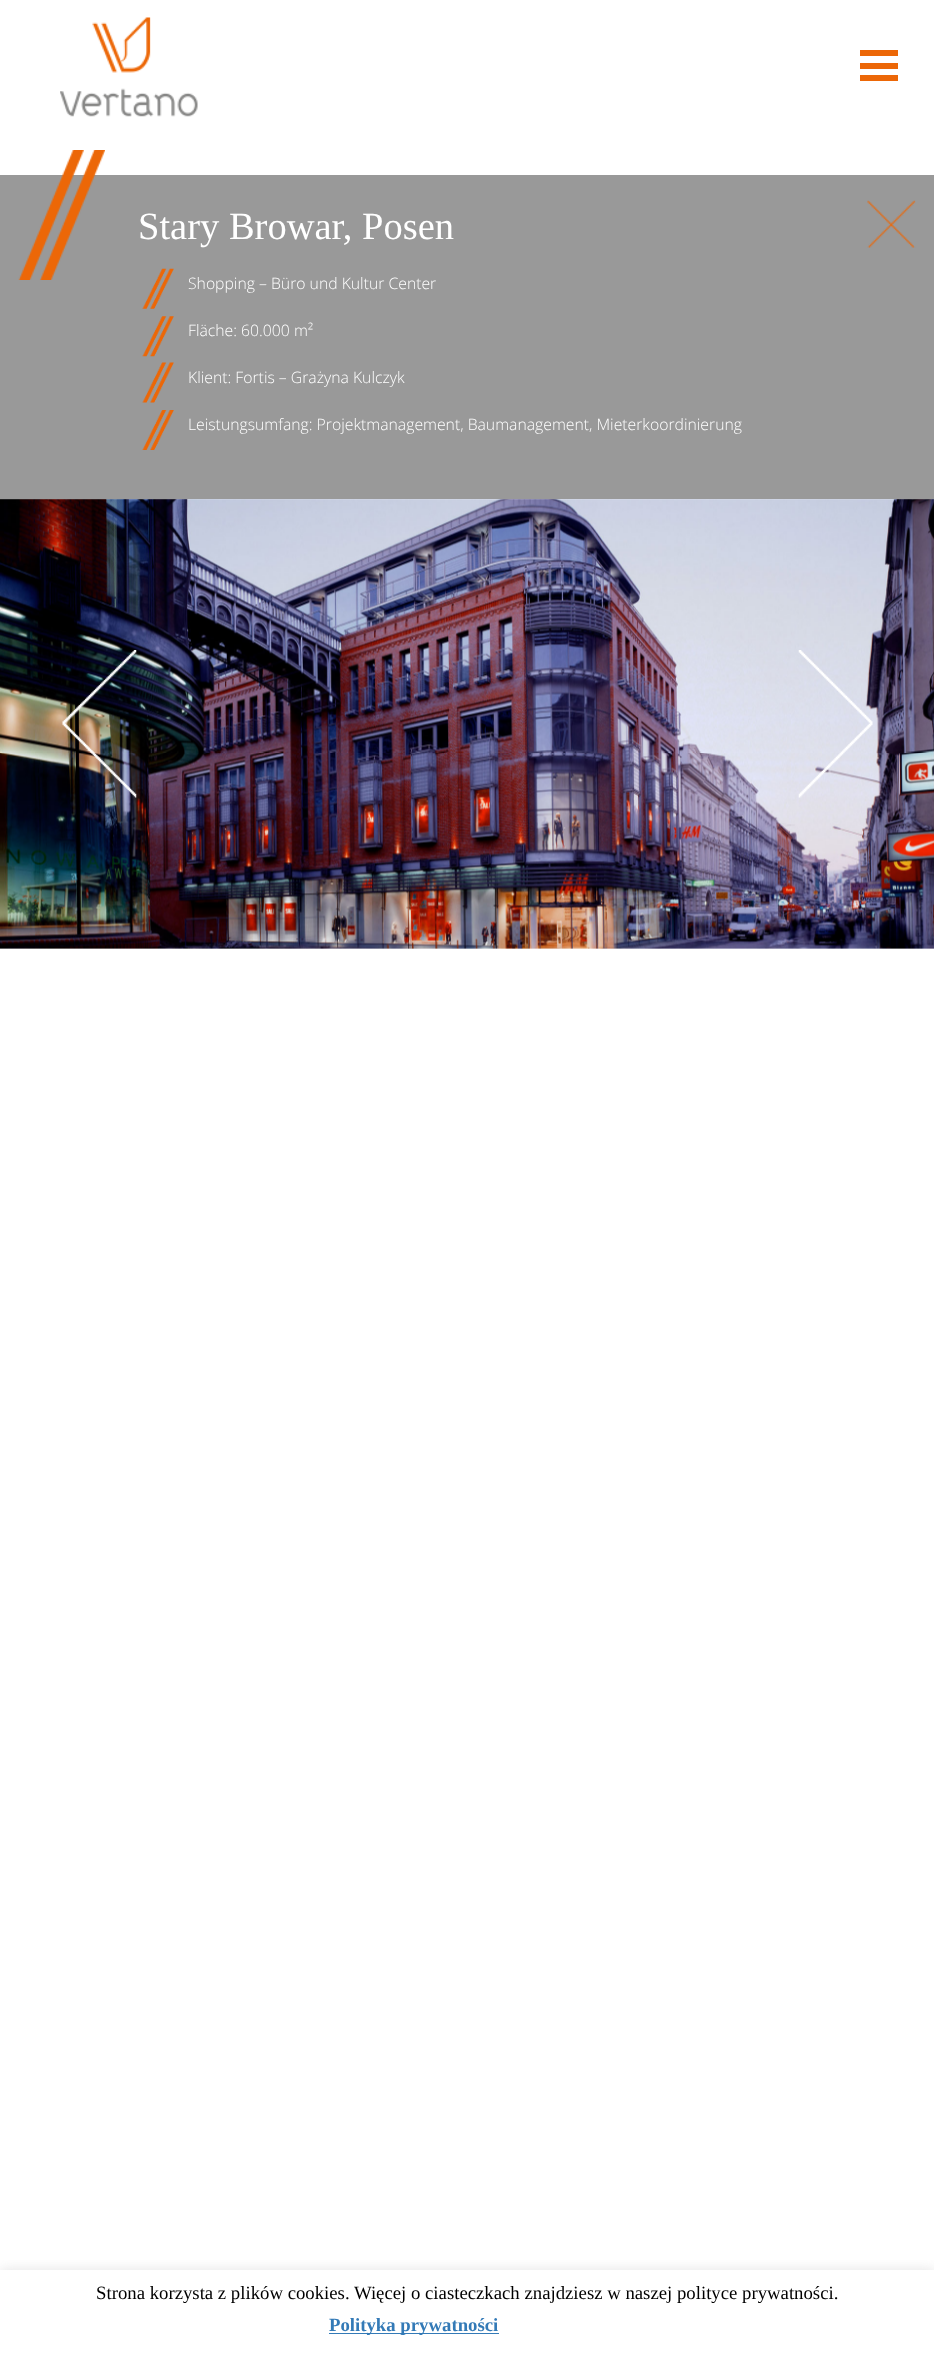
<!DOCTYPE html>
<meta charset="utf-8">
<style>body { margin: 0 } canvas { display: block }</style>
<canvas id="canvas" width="934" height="2360"></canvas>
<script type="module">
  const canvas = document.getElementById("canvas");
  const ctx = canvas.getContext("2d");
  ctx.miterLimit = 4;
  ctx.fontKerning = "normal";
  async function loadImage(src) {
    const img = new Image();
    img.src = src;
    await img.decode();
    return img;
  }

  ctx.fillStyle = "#ffffff";
  ctx.fillRect(0, 0, 934, 2360);
  ctx.drawImage(await loadImage("img1.png"), 60, 17, 138, 100);
  ctx.fillStyle = "#ec6707";
  ctx.fillRect(860, 50, 38, 6);
  ctx.fillRect(860, 63, 38, 6);
  ctx.fillRect(860, 75, 38, 6);
  ctx.fillStyle = "#999999";
  ctx.fillRect(0, 175, 934, 324);
  ctx.drawImage(await loadImage("img2.png"), 18, 150, 87, 130);
  ctx.font = "38.5px Liberation Serif";
  ctx.fillStyle = "#ffffff";
  ctx.fillText("Stary Browar, Posen", 138, 239);
  ctx.drawImage(await loadImage("img3.png"), 142, 268, 32, 41);
  ctx.font = "300 15.75px Open Sans";
  ctx.fillText("Shopping – Büro und Kultur Center", 188, 289);
  ctx.drawImage(await loadImage("img4.png"), 142, 316, 32, 41);
  ctx.fillText("Fläche: 60.000 m²", 188, 336);
  ctx.drawImage(await loadImage("img5.png"), 142, 362, 32, 41);
  ctx.fillText("Klient: Fortis – Grażyna Kulczyk", 188, 383);
  ctx.drawImage(await loadImage("img6.png"), 142, 410, 32, 40);
  ctx.fillText("Leistungsumfang: Projektmanagement, Baumanagement, Mieterkoordinierung", 188, 430);
  ctx.drawImage(await loadImage("img7.png"), 867, 200, 49, 48);
  ctx.drawImage(await loadImage("img8.png"), 0, 499, 934, 450);
  ctx.drawImage(await loadImage("img9.png"), 62, 650, 75, 148);
  ctx.drawImage(await loadImage("img10.png"), 798, 650, 75, 148);
  ctx.save();
  ctx.beginPath();
  ctx.rect(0, 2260, 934, 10);
  ctx.clip();
  ctx.fillStyle = "rgba(172, 171, 171, 0.3)";
  ctx.filter = "blur(6px)";
  ctx.beginPath();
  ctx.rect(0, 2269, 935, 90);
  ctx.fill();
  ctx.filter = "none";
  ctx.restore();
  ctx.font = "18.75px Liberation Serif";
  ctx.fillStyle = "#000000";
  ctx.fillText("Strona korzysta z plików cookies. Więcej o ciasteczkach znajdziesz w naszej polityce prywatności.", 96, 2299);
  ctx.fillStyle = "#337ab7";
  ctx.fillRect(329, 2333, 170, 1);
  ctx.font = "bold 18.75px Liberation Serif";
  ctx.fillText("Polityka prywatności", 329, 2331);
</script>
